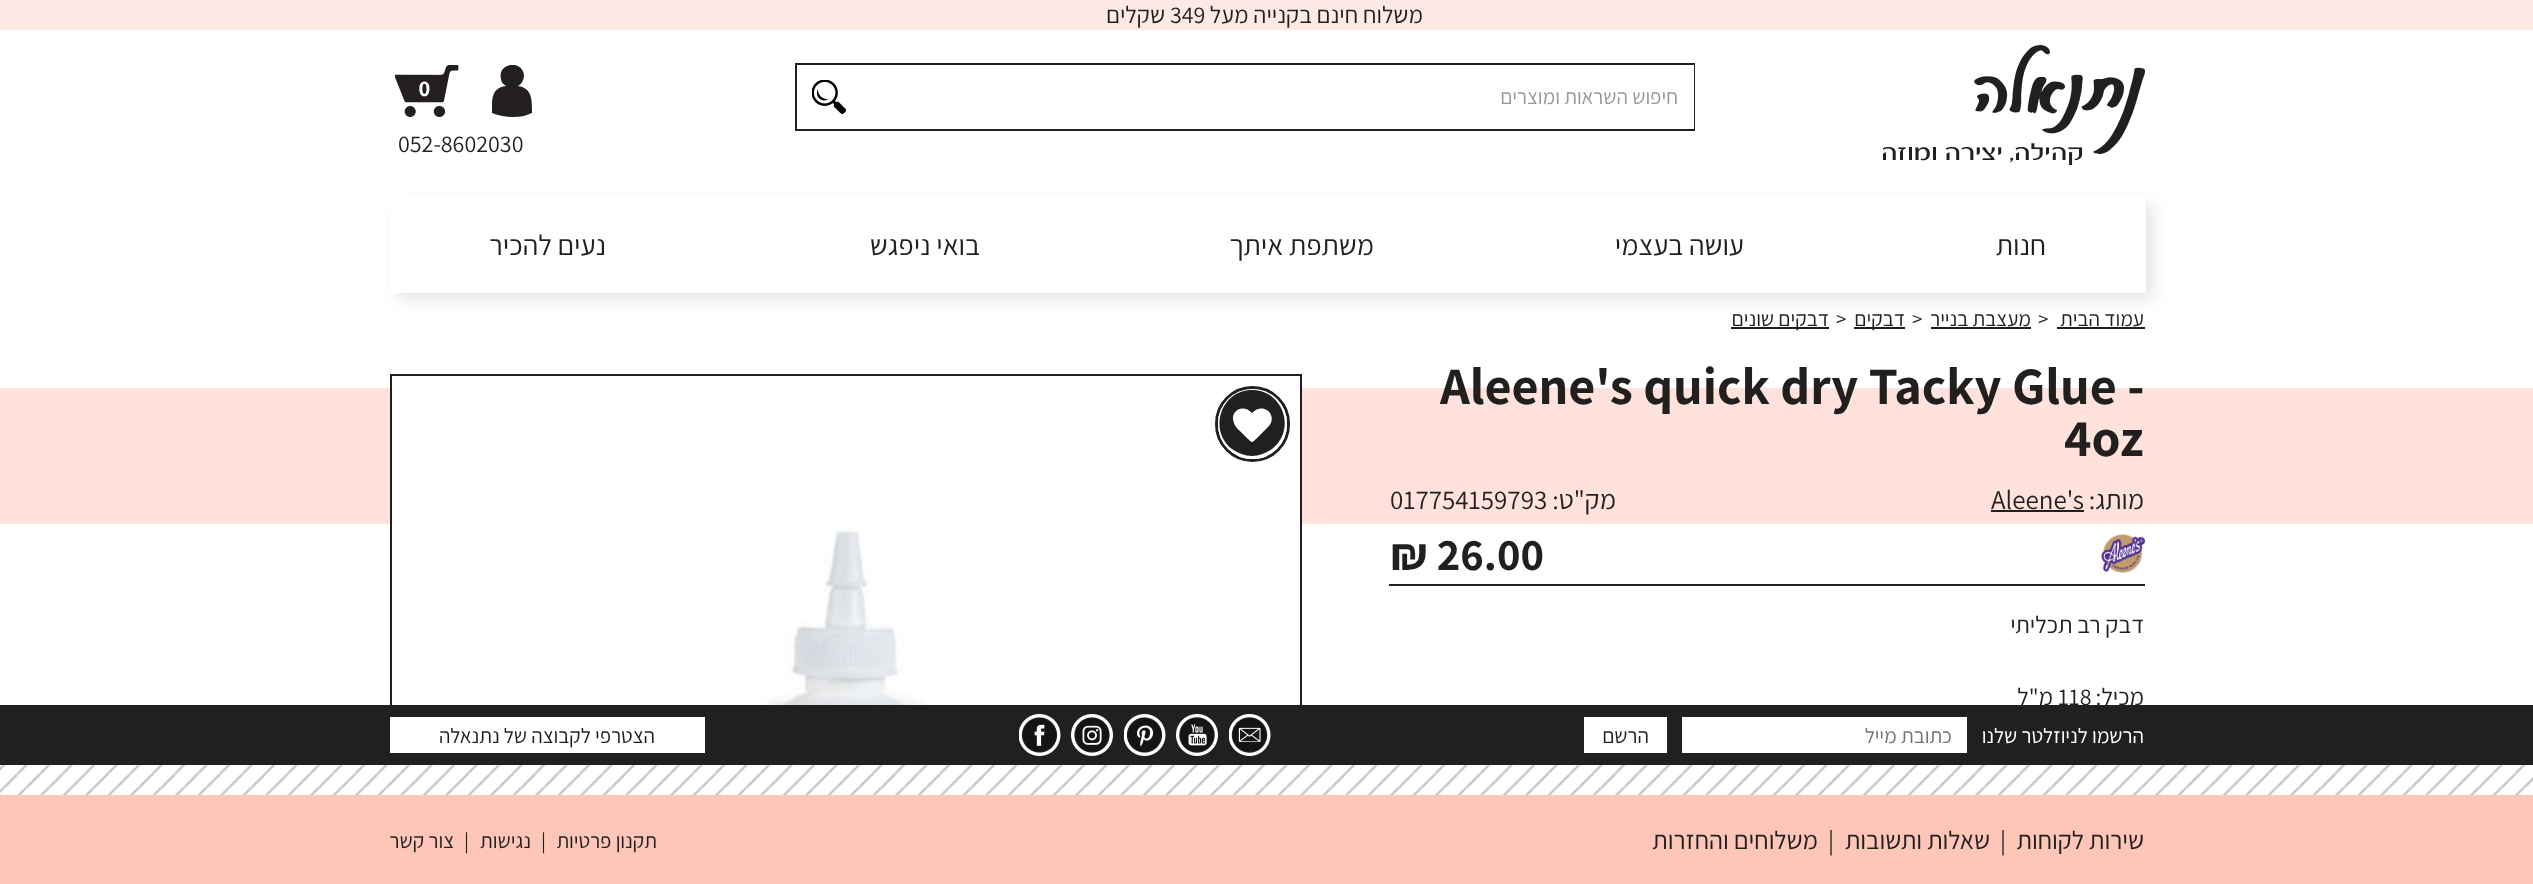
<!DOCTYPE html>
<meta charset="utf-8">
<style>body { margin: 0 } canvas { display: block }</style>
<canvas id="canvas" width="2533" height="884"></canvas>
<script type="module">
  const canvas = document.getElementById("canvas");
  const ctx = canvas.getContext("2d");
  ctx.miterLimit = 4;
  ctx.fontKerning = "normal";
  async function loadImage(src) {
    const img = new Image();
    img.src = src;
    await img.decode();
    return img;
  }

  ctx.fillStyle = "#ffffff";
  ctx.fillRect(0, 0, 2533, 884);
  ctx.fillStyle = "#ffe9e4";
  ctx.fillRect(0, 0, 2533, 30);
  ctx.direction = "rtl";
  ctx.font = "24px Assistant";
  ctx.fillStyle = "#221f1f";
  ctx.fillText("משלוח חינם בקנייה מעל", 1423, 23);
  ctx.direction = "ltr";
  ctx.fillText("349", 1170, 23);
  ctx.direction = "rtl";
  ctx.fillText("שקלים", 1165, 23);
  ctx.drawImage(await loadImage("img1.png"), 1883, 45, 262, 120);
  ctx.strokeStyle = "#221f1f";
  ctx.lineWidth = 2;
  ctx.strokeRect(796, 64, 898, 66);
  ctx.fillStyle = "#ffffff";
  ctx.fillRect(1693, 65, 1, 64);
  ctx.font = "21px Assistant";
  ctx.fillStyle = "#999999";
  ctx.fillText("חיפוש השראות ומוצרים", 1678, 104);
  ctx.drawImage(await loadImage("img2.png"), 812, 80, 34, 34);
  ctx.save();
  ctx.beginPath();
  ctx.rect(492, 65, 41, 52);
  ctx.clip();
  ctx.fillStyle = "#231f20";
  ctx.beginPath();
  ctx.moveTo(518, 86);
  ctx.bezierCurveTo(522, 84, 524, 79, 524, 75);
  ctx.bezierCurveTo(522, 59, 497, 63, 501, 79);
  ctx.bezierCurveTo(501, 82, 503, 84, 506, 86);
  ctx.bezierCurveTo(490, 88, 492, 102, 492, 113);
  ctx.bezierCurveTo(502, 117, 513, 118, 524, 116);
  ctx.lineTo(532, 113);
  ctx.bezierCurveTo(532, 102, 533, 88, 518, 86);
  ctx.closePath();
  ctx.fill();
  ctx.restore();
  ctx.drawImage(await loadImage("img3.png"), 395, 65, 64, 52);
  ctx.drawImage(await loadImage("img4.png"), 419, 81, 11, 16);
  ctx.direction = "ltr";
  ctx.font = "24px Assistant";
  ctx.fillStyle = "#221f1f";
  ctx.fillText("052-8602030", 398, 152);
  ctx.save();
  ctx.beginPath();
  ctx.moveTo(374, 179);
  ctx.lineTo(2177, 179);
  ctx.lineTo(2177, 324);
  ctx.lineTo(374, 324);
  ctx.closePath();
  ctx.moveTo(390, 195);
  ctx.lineTo(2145, 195);
  ctx.lineTo(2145, 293);
  ctx.lineTo(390, 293);
  ctx.closePath();
  ctx.clip("evenodd");
  ctx.fillStyle = "rgba(0, 0, 0, 0.1)";
  ctx.filter = "blur(7.5px)";
  ctx.beginPath();
  ctx.rect(398, 203, 1755, 97);
  ctx.fill();
  ctx.filter = "none";
  ctx.restore();
  ctx.fillStyle = "#ffffff";
  ctx.fillRect(2144, 195, 2, 98);
  ctx.fillRect(1899, 292, 2, 1);
  ctx.direction = "rtl";
  ctx.font = "28.5px Assistant";
  ctx.fillStyle = "#221f1f";
  ctx.fillText("חנות", 2046, 255);
  ctx.fillStyle = "#ffffff";
  ctx.fillRect(1836, 292, 2, 1);
  ctx.fillRect(1521, 292, 2, 1);
  ctx.fillStyle = "#221f1f";
  ctx.fillText("עושה בעצמי", 1744, 255);
  ctx.fillStyle = "#ffffff";
  ctx.fillRect(1458, 292, 2, 1);
  ctx.fillRect(1145, 292, 2, 1);
  ctx.fillStyle = "#221f1f";
  ctx.fillText("משתפת איתך", 1374, 255);
  ctx.fillStyle = "#ffffff";
  ctx.fillRect(1082, 292, 2, 1);
  ctx.fillRect(767, 292, 2, 1);
  ctx.fillStyle = "#221f1f";
  ctx.fillText("בואי ניפגש", 980, 255);
  ctx.fillStyle = "#ffffff";
  ctx.fillRect(704, 292, 2, 1);
  ctx.fillStyle = "#221f1f";
  ctx.fillText("נעים להכיר", 606, 255);
  ctx.font = "21px Assistant";
  ctx.fillText("עמוד הבית", 2144, 326);
  ctx.fillRect(2057, 327, 88, 2);
  ctx.direction = "ltr";
  ctx.fillText(">", 2038, 326);
  ctx.direction = "rtl";
  ctx.fillText("מעצבת בנייר", 2031, 326);
  ctx.fillRect(1931, 327, 100, 2);
  ctx.direction = "ltr";
  ctx.fillText(">", 1912, 326);
  ctx.fillRect(1854, 327, 51, 2);
  ctx.direction = "rtl";
  ctx.fillText("דבקים", 1905, 326);
  ctx.direction = "ltr";
  ctx.fillText(">", 1836, 326);
  ctx.fillRect(1731, 327, 98, 2);
  ctx.direction = "rtl";
  ctx.fillText("דבקים שונים", 1829, 326);
  ctx.fillStyle = "#ffe2db";
  ctx.fillRect(0, 388, 2533, 136);
  ctx.direction = "ltr";
  ctx.font = "bold 52.5px Assistant";
  ctx.fillStyle = "#221f1f";
  ctx.fillText("Aleene's quick dry Tacky Glue -", 1440, 404);
  ctx.fillText("4oz", 2064, 456);
  ctx.direction = "rtl";
  ctx.font = "27px Assistant";
  ctx.fillText("מותג:", 2144, 509);
  ctx.direction = "ltr";
  ctx.fillText("Aleene's", 1991, 509);
  ctx.fillRect(1991, 510, 93, 2);
  ctx.direction = "rtl";
  ctx.fillText("מק\"ט:", 1616, 509);
  ctx.direction = "ltr";
  ctx.fillText("017754159793", 1390, 509);
  ctx.fillRect(1389, 584, 756, 2);
  ctx.drawImage(await loadImage("img5.png"), 2101, 534, 44, 39);
  ctx.font = "bold 45px Assistant";
  ctx.fillText("₪ 26.00", 1390, 570);
  ctx.direction = "rtl";
  ctx.font = "24px Assistant";
  ctx.fillText("דבק רב תכליתי", 2144, 633);
  ctx.fillText("מכיל:", 2144, 705);
  ctx.direction = "ltr";
  ctx.fillText("118", 2058, 705);
  ctx.direction = "rtl";
  ctx.fillText("מ\"ל", 2053, 705);
  ctx.fillStyle = "#ffffff";
  ctx.fillRect(392, 388, 908, 136);
  ctx.strokeRect(391, 375, 910, 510);
  ctx.drawImage(await loadImage("img6.png"), 762, 526, 169, 179);
  ctx.beginPath();
  ctx.roundRect(1216.5, 387.5, 72, 73, 36);
  ctx.lineWidth = 3;
  ctx.stroke();
  ctx.beginPath();
  ctx.roundRect(1219, 390, 67, 68, 33.5);
  ctx.fill();
  ctx.strokeStyle = "#ffffff";
  ctx.lineWidth = 2;
  ctx.stroke();
  ctx.fillStyle = "#221f1f";
  ctx.beginPath();
  ctx.moveTo(1252, 390);
  ctx.bezierCurveTo(1221, 390, 1208, 430, 1232, 449);
  ctx.bezierCurveTo(1238, 453, 1245, 456, 1252, 456);
  ctx.bezierCurveTo(1259, 456, 1266, 453, 1272, 449);
  ctx.bezierCurveTo(1297, 430, 1283, 390, 1252, 390);
  ctx.closePath();
  ctx.moveTo(1269, 426);
  ctx.lineTo(1256, 439);
  ctx.bezierCurveTo(1252, 443, 1252, 443, 1248, 439);
  ctx.lineTo(1243, 434);
  ctx.bezierCurveTo(1240, 431, 1235, 427, 1234, 423);
  ctx.bezierCurveTo(1229, 411, 1243, 403, 1252, 413);
  ctx.bezierCurveTo(1264, 401, 1278, 416, 1269, 426);
  ctx.closePath();
  ctx.fill();
  ctx.fillRect(0, 705, 2533, 60);
  ctx.font = "21px Assistant";
  ctx.fillStyle = "#ffffff";
  ctx.fillText("הרשמו לניוזלטר שלנו", 2144, 743);
  ctx.fillRect(1682, 717, 285, 36);
  ctx.fillStyle = "#757575";
  ctx.fillText("כתובת מייל", 1952, 743);
  ctx.fillStyle = "#ffffff";
  ctx.fillRect(1584, 717, 83, 36);
  ctx.fillStyle = "#221f1f";
  ctx.fillText("הרשם", 1649, 743);
  ctx.drawImage(await loadImage("img7.png"), 1229, 714, 42, 42);
  ctx.drawImage(await loadImage("img8.png"), 1176, 714, 42, 42);
  ctx.drawImage(await loadImage("img9.png"), 1124, 714, 42, 42);
  ctx.drawImage(await loadImage("img10.png"), 1071, 714, 42, 42);
  ctx.drawImage(await loadImage("img11.png"), 1019, 714, 42, 42);
  ctx.fillStyle = "#ffffff";
  ctx.fillRect(390, 717, 315, 36);
  ctx.fillStyle = "#221f1f";
  ctx.fillText("הצטרפי לקבוצה של נתנאלה", 655, 743);
  ctx.drawImage(await loadImage("img12.png"), 0, 765, 2533, 30);
  ctx.fillStyle = "#fdc6b9";
  ctx.fillRect(0, 795, 2533, 89);
  ctx.font = "25.5px Assistant";
  ctx.fillStyle = "#221f1f";
  ctx.fillText("שירות לקוחות", 2144, 849);
  ctx.direction = "ltr";
  ctx.fillText("|", 2000, 849);
  ctx.direction = "rtl";
  ctx.fillText("שאלות ותשובות", 1990, 849);
  ctx.direction = "ltr";
  ctx.fillText("|", 1828, 849);
  ctx.direction = "rtl";
  ctx.fillText("משלוחים והחזרות", 1818, 849);
  ctx.font = "21px Assistant";
  ctx.fillText("תקנון פרטיות", 657, 848);
  ctx.direction = "ltr";
  ctx.fillText("|", 541, 848);
  ctx.direction = "rtl";
  ctx.fillText("נגישות", 531, 848);
  ctx.direction = "ltr";
  ctx.fillText("|", 464, 848);
  ctx.direction = "rtl";
  ctx.fillText("צור קשר", 454, 848);
</script>
